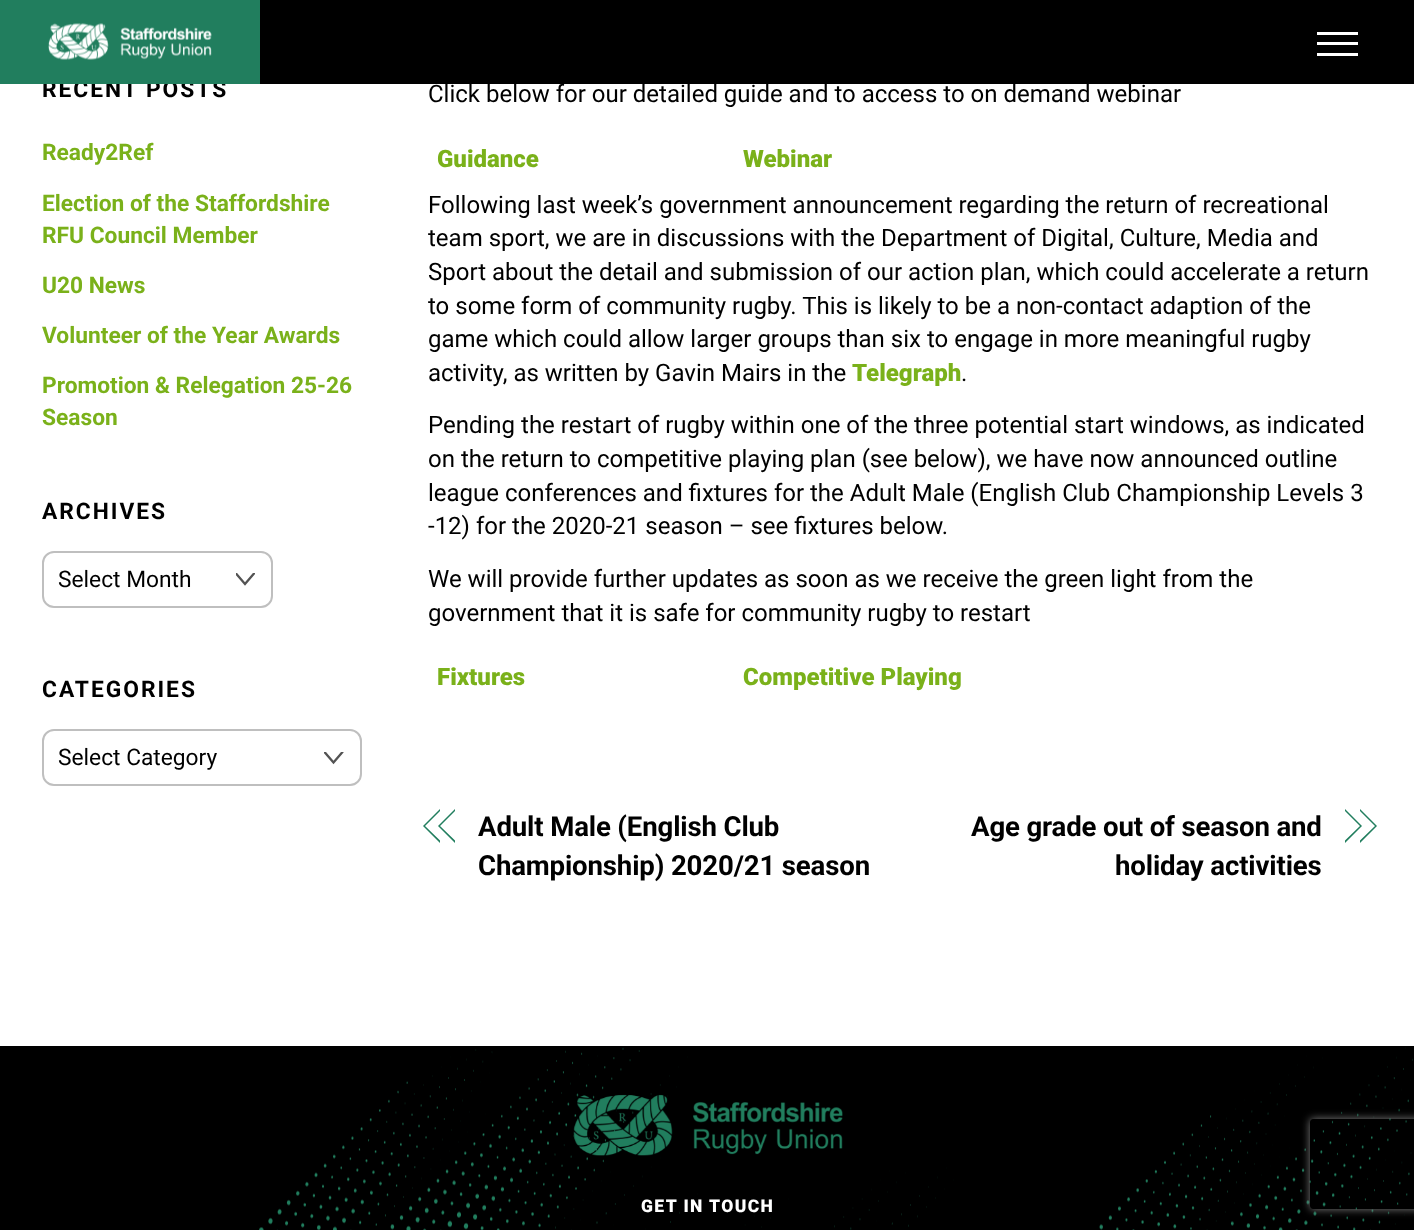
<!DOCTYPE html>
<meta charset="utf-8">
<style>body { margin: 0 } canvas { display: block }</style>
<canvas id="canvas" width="1414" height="1230"></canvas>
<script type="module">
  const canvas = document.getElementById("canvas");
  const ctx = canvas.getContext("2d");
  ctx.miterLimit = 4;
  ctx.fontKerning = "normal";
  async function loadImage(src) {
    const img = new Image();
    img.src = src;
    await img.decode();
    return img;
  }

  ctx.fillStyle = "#ffffff";
  ctx.fillRect(0, 0, 1414, 1230);
  ctx.fillStyle = "#000000";
  ctx.fillRect(260, 0, 1154, 84);
  ctx.letterSpacing = "2px";
  ctx.font = "bold 22.75px Roboto";
  ctx.fillText("RECENT POSTS", 42, 97);
  ctx.fillStyle = "#217e5e";
  ctx.fillRect(0, 0, 260, 84);
  ctx.drawImage(await loadImage("img1.png"), 48, 23, 164, 37);
  ctx.fillStyle = "#ffffff";
  ctx.fillRect(1317, 53, 41, 3);
  ctx.fillRect(1317, 32, 41, 3);
  ctx.fillRect(1317, 42, 41, 3);
  ctx.letterSpacing = "0px";
  ctx.fillStyle = "#7ab11a";
  ctx.fillText("Ready2Ref", 42, 160);
  ctx.fillText("Election of the Staffordshire", 42, 211);
  ctx.fillText("RFU Council Member", 42, 243);
  ctx.fillText("U20 News", 42, 293);
  ctx.fillText("Volunteer of the Year Awards", 42, 343);
  ctx.fillText("Promotion & Relegation 25-26", 42, 393);
  ctx.fillText("Season", 42, 425);
  ctx.letterSpacing = "2px";
  ctx.fillStyle = "#000000";
  ctx.fillText("ARCHIVES", 42, 519);
  ctx.save();
  ctx.beginPath();
  ctx.rect(236, 573, 19, 20);
  ctx.clip();
  ctx.beginPath();
  ctx.moveTo(236, 573.5);
  ctx.lineTo(245, 584);
  ctx.lineTo(254, 573.5);
  ctx.strokeStyle = "#535353";
  ctx.lineWidth = 2.3;
  ctx.lineCap = "round";
  ctx.stroke();
  ctx.restore();
  ctx.beginPath();
  ctx.roundRect(43, 552, 229, 55, 11);
  ctx.strokeStyle = "#bfbfbf";
  ctx.lineWidth = 2;
  ctx.stroke();
  ctx.letterSpacing = "0px";
  ctx.font = "22.75px Roboto";
  ctx.fillText("Select Month", 58, 587);
  ctx.letterSpacing = "2px";
  ctx.font = "bold 22.75px Roboto";
  ctx.fillText("CATEGORIES", 42, 697);
  ctx.save();
  ctx.beginPath();
  ctx.rect(324, 752, 20, 19);
  ctx.clip();
  ctx.beginPath();
  ctx.moveTo(324.5, 752);
  ctx.lineTo(333.5, 762.5);
  ctx.lineTo(342.5, 752);
  ctx.strokeStyle = "#535353";
  ctx.lineWidth = 2.3;
  ctx.lineCap = "round";
  ctx.stroke();
  ctx.restore();
  ctx.beginPath();
  ctx.roundRect(43, 730, 318, 55, 11);
  ctx.stroke();
  ctx.letterSpacing = "0px";
  ctx.font = "22.75px Roboto";
  ctx.fillText("Select Category", 58, 765);
  ctx.font = "24px Roboto";
  ctx.fillText("Click below for our detailed guide and to access to on demand webinar", 428, 102);
  ctx.font = "900 24px Roboto";
  ctx.fillStyle = "#7ab11a";
  ctx.fillText("Guidance", 437, 167);
  ctx.fillText("Webinar", 743, 167);
  ctx.font = "24px Roboto";
  ctx.fillStyle = "#000000";
  ctx.fillText("Following last week’s government announcement regarding the return of recreational", 428, 213);
  ctx.fillText("team sport, we are in discussions with the Department of Digital, Culture, Media and", 428, 246);
  ctx.fillText("Sport about the detail and submission of our action plan, which could accelerate a return", 428, 280);
  ctx.fillText("to some form of community rugby. This is likely to be a non-contact adaption of the", 428, 314);
  ctx.fillText("game which could allow larger groups than six to engage in more meaningful rugby", 428, 347);
  ctx.fillText("activity, as written by Gavin Mairs in the", 428, 381);
  ctx.font = "900 24px Roboto";
  ctx.fillStyle = "#7ab11a";
  ctx.fillText("Telegraph", 852, 381);
  ctx.font = "24px Roboto";
  ctx.fillStyle = "#000000";
  ctx.fillText(".", 961, 381);
  ctx.fillText("Pending the restart of rugby within one of the three potential start windows, as indicated", 428, 433);
  ctx.fillText("on the return to competitive playing plan (see below), we have now announced outline", 428, 467);
  ctx.fillText("league conferences and fixtures for the Adult Male (English Club Championship Levels 3", 428, 501);
  ctx.fillText("-12) for the 2020-21 season – see fixtures below.", 428, 534);
  ctx.fillText("We will provide further updates as soon as we receive the green light from the", 428, 587);
  ctx.fillText("government that it is safe for community rugby to restart", 428, 621);
  ctx.font = "900 24px Roboto";
  ctx.fillStyle = "#7ab11a";
  ctx.fillText("Fixtures", 437, 685);
  ctx.fillText("Competitive Playing", 743, 685);
  ctx.fillStyle = "#217e5e";
  ctx.beginPath();
  ctx.moveTo(423, 826);
  ctx.lineTo(440, 809);
  ctx.lineTo(440, 811);
  ctx.lineTo(425, 826);
  ctx.closePath();
  ctx.moveTo(440, 843);
  ctx.lineTo(423, 826);
  ctx.lineTo(425, 826);
  ctx.lineTo(440, 840.5);
  ctx.closePath();
  ctx.fill();
  ctx.beginPath();
  ctx.moveTo(438, 826);
  ctx.lineTo(455, 809);
  ctx.lineTo(455, 811);
  ctx.lineTo(440, 826);
  ctx.closePath();
  ctx.moveTo(455, 843);
  ctx.lineTo(438, 826);
  ctx.lineTo(440, 826);
  ctx.lineTo(455, 840.5);
  ctx.closePath();
  ctx.fill();
  ctx.letterSpacing = "-0.15px";
  ctx.font = "bold 27.6px Roboto";
  ctx.fillStyle = "#000000";
  ctx.fillText("Adult Male (English Club", 478, 836);
  ctx.fillText("Championship) 2020/21 season", 478, 875);
  ctx.fillText("Age grade out of season and", 971, 836);
  ctx.fillStyle = "#217e5e";
  ctx.beginPath();
  ctx.moveTo(1360, 809);
  ctx.lineTo(1377, 826);
  ctx.lineTo(1375, 826);
  ctx.lineTo(1360, 811);
  ctx.closePath();
  ctx.moveTo(1377, 826);
  ctx.lineTo(1360, 843);
  ctx.lineTo(1360, 840.5);
  ctx.lineTo(1375, 826);
  ctx.closePath();
  ctx.fill();
  ctx.beginPath();
  ctx.moveTo(1345, 809);
  ctx.lineTo(1362, 826);
  ctx.lineTo(1360, 826);
  ctx.lineTo(1345, 811);
  ctx.closePath();
  ctx.moveTo(1362, 826);
  ctx.lineTo(1345, 843);
  ctx.lineTo(1345, 840.5);
  ctx.lineTo(1360, 826);
  ctx.closePath();
  ctx.fill();
  ctx.fillStyle = "#000000";
  ctx.fillText("holiday activities", 1115, 875);
  ctx.fillRect(0, 1046, 1414, 184);
  ctx.drawImage(await loadImage("img2.png"), 259, 1047, 1154, 183);
  ctx.drawImage(await loadImage("img3.png"), 573, 1094, 270, 62);
  ctx.letterSpacing = "1.4px";
  ctx.font = "900 17.5px Roboto";
  ctx.fillStyle = "#ffffff";
  ctx.fillText("GET IN TOUCH", 641, 1212);
  ctx.save();
  ctx.beginPath();
  ctx.moveTo(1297, 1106);
  ctx.lineTo(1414, 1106);
  ctx.lineTo(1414, 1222);
  ctx.lineTo(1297, 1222);
  ctx.closePath();
  ctx.moveTo(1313, 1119);
  ctx.lineTo(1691, 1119);
  ctx.bezierCurveTo(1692.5, 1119, 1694, 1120.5, 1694, 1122);
  ctx.lineTo(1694, 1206);
  ctx.bezierCurveTo(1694, 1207.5, 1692.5, 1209, 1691, 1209);
  ctx.lineTo(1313, 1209);
  ctx.bezierCurveTo(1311.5, 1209, 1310, 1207.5, 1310, 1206);
  ctx.lineTo(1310, 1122);
  ctx.bezierCurveTo(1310, 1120.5, 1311.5, 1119, 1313, 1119);
  ctx.closePath();
  ctx.clip("evenodd");
  ctx.fillStyle = "#808080";
  ctx.filter = "blur(4px)";
  ctx.beginPath();
  ctx.roundRect(1310, 1119, 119, 90, 3);
  ctx.fill();
  ctx.filter = "none";
  ctx.restore();
</script>
